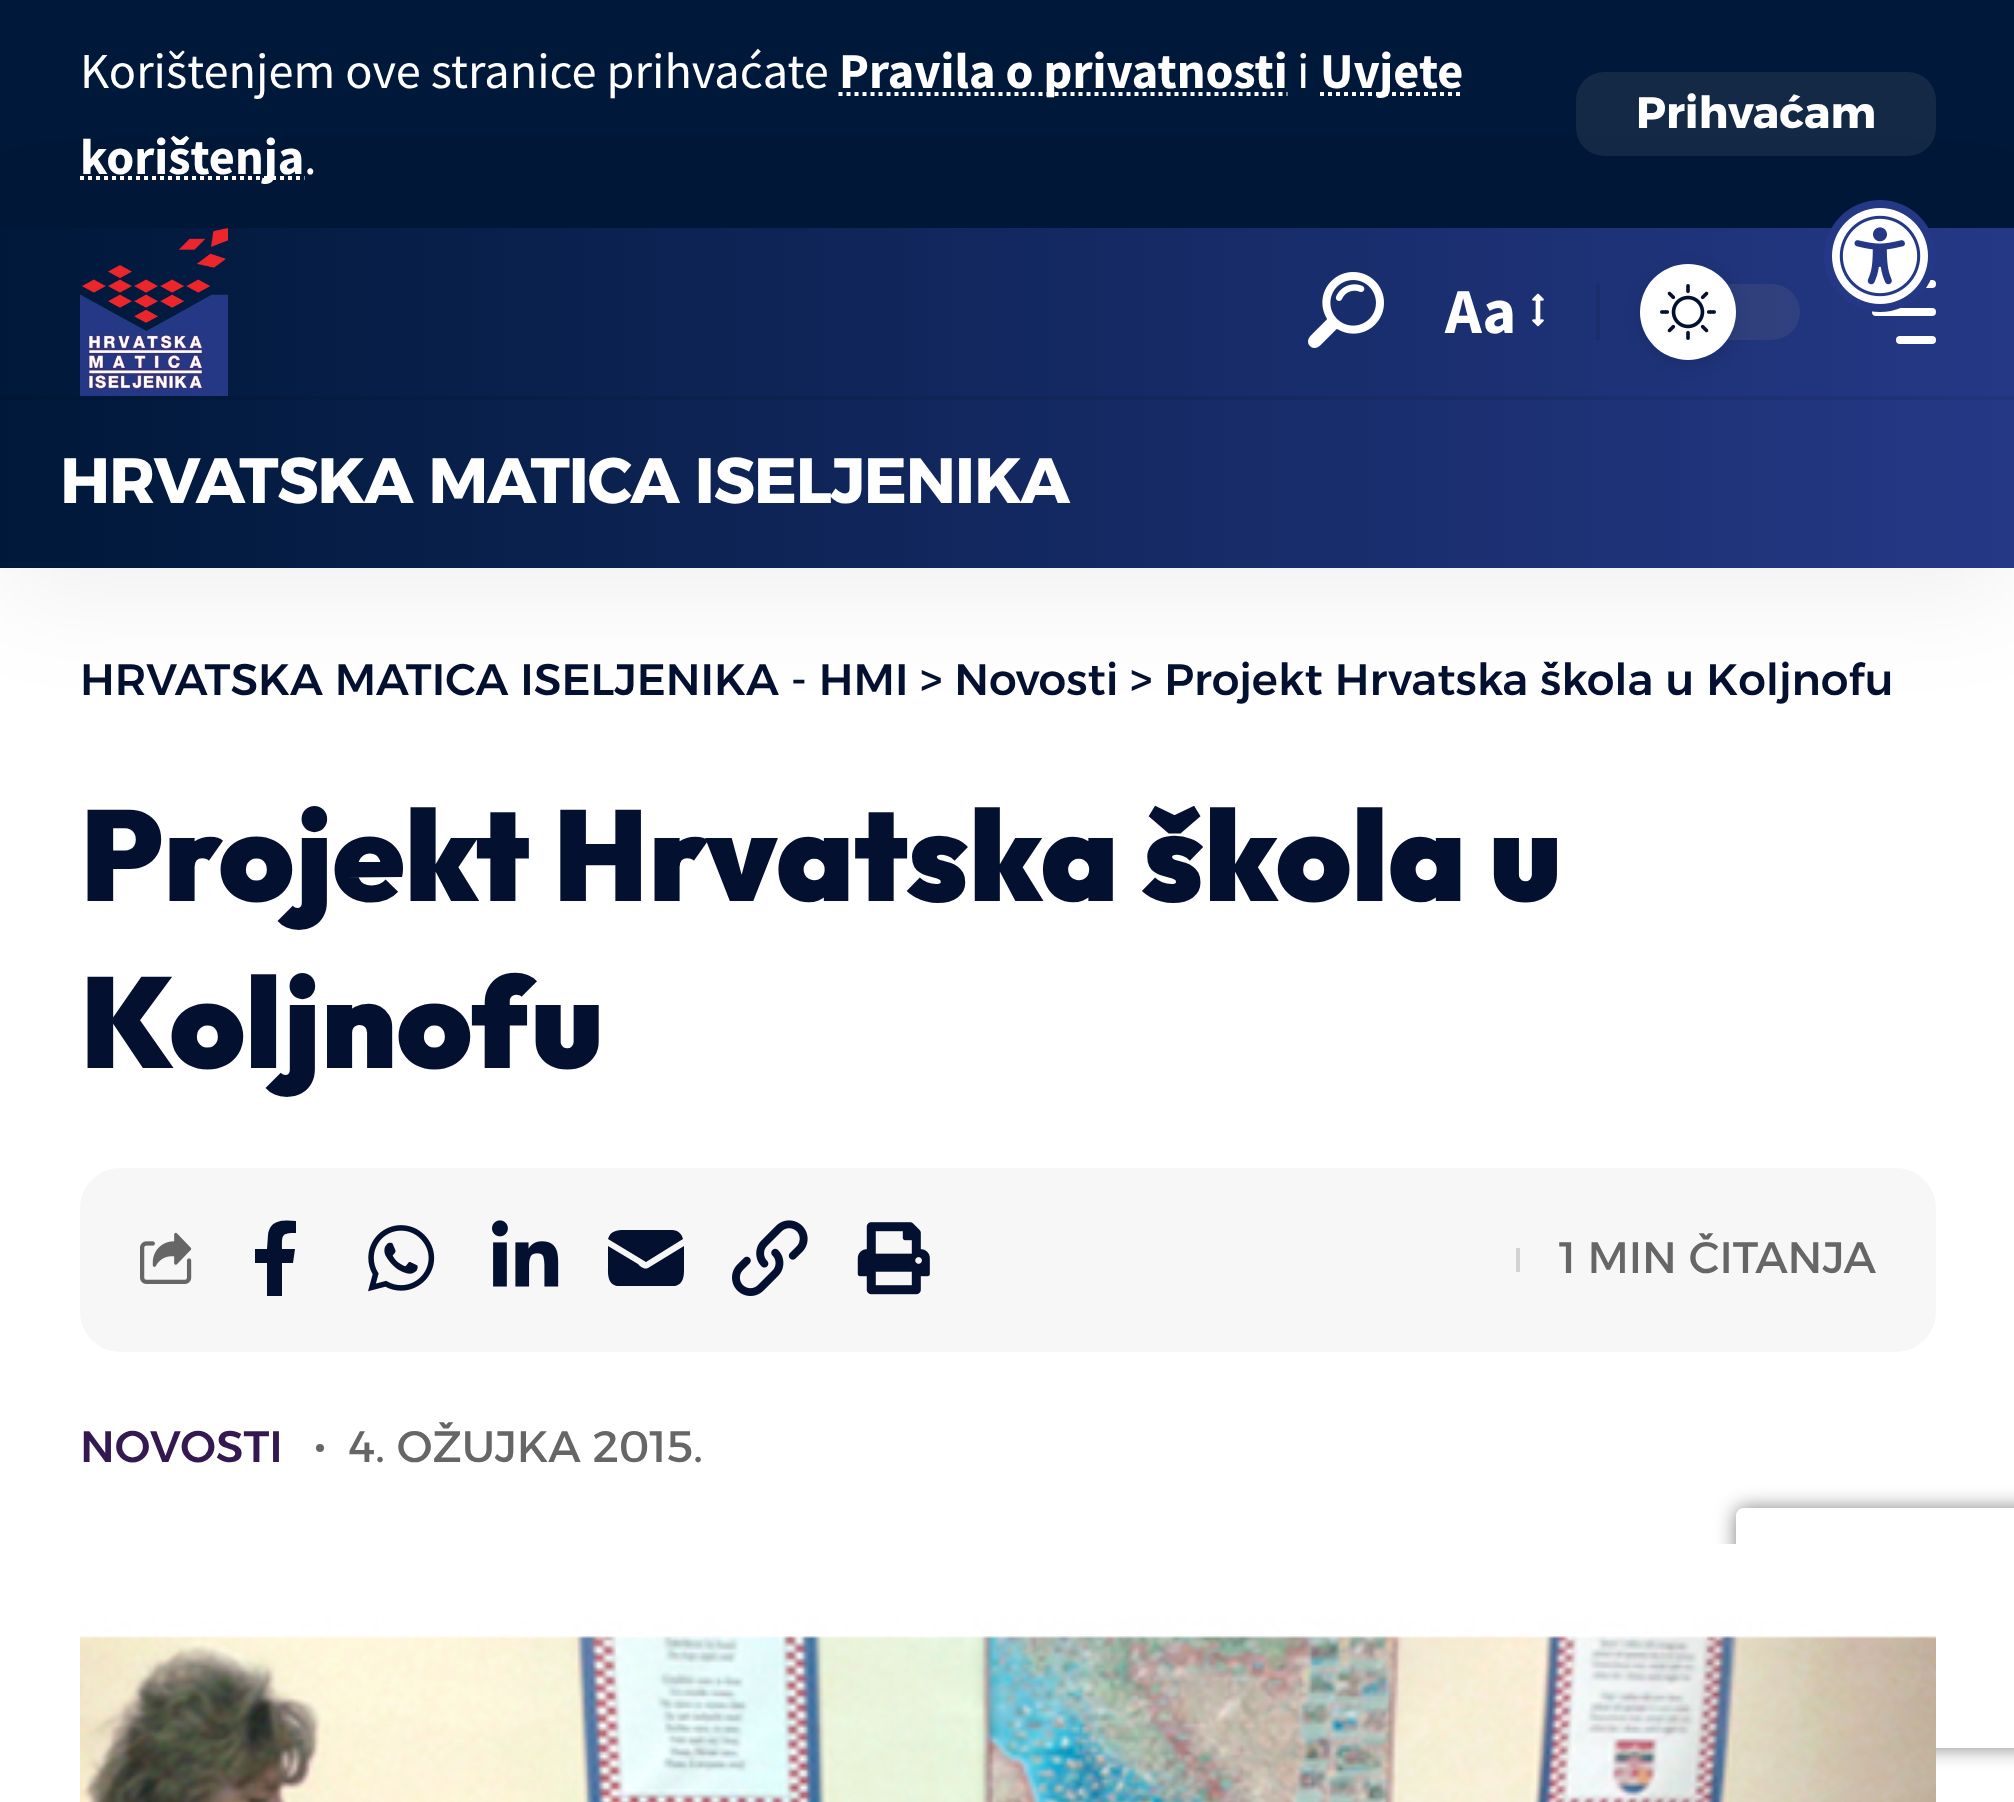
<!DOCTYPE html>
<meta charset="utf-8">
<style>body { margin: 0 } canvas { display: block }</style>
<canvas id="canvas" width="2014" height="1802"></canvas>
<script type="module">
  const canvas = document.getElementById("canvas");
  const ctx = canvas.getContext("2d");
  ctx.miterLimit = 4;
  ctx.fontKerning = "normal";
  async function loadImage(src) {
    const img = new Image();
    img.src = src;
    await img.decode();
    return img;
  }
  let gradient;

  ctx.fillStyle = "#ffffff";
  ctx.fillRect(0, 0, 2014, 1802);
  ctx.fillStyle = "#001839";
  ctx.fillRect(0, 0, 2014, 228);
  ctx.font = "50.4px Source Sans Pro";
  ctx.fillStyle = "#ffffff";
  ctx.fillText("Korištenjem ove stranice prihvaćate", 80, 88);
  ctx.beginPath();
  ctx.moveTo(838.5, 94);
  ctx.lineTo(1287.5, 94);
  ctx.strokeStyle = "#ffffff";
  ctx.lineWidth = 4;
  ctx.setLineDash([4, 4]);
  ctx.stroke();
  ctx.font = "bold 50.4px Source Sans Pro";
  ctx.fillText("Pravila o privatnosti", 839, 88);
  ctx.font = "50.4px Source Sans Pro";
  ctx.fillText("i", 1297, 88);
  ctx.beginPath();
  ctx.moveTo(1320, 94);
  ctx.lineTo(1463.5, 94);
  ctx.stroke();
  ctx.font = "bold 50.4px Source Sans Pro";
  ctx.fillText("Uvjete", 1320, 88);
  ctx.beginPath();
  ctx.moveTo(80, 178);
  ctx.lineTo(304.5, 178);
  ctx.stroke();
  ctx.fillText("korištenja", 80, 174);
  ctx.font = "50.4px Source Sans Pro";
  ctx.fillText(".", 304, 174);
  ctx.fillStyle = "#142945";
  ctx.beginPath();
  ctx.roundRect(1576, 72, 360, 84, 28);
  ctx.fill();
  ctx.font = "bold 44px Alexandria";
  ctx.fillStyle = "#ffffff";
  ctx.fillText("Prihvaćam", 1636, 128);
  ctx.fillStyle = "rgba(0, 0, 0, 0.07)";
  ctx.filter = "blur(60px)";
  ctx.beginPath();
  ctx.rect(0, 244, 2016, 340);
  ctx.fill();
  ctx.filter = "none";
  gradient = ctx.createLinearGradient(0, 398, 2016, 398);
  gradient.addColorStop(0, "#001839");
  gradient.addColorStop(1, "#253886");
  ctx.fillStyle = gradient;
  ctx.fillRect(0, 228, 2014, 340);
  gradient = ctx.createLinearGradient(0, 398, 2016, 398);
  gradient.addColorStop(0, "#001634");
  gradient.addColorStop(1, "#22347b");
  ctx.fillStyle = gradient;
  ctx.fillRect(0, 396, 2014, 4);
  ctx.drawImage(await loadImage("img1.png"), 80, 228, 148, 168);
  ctx.drawImage(await loadImage("img2.png"), 1308, 272, 76, 76);
  ctx.font = "bold 64px Source Sans Pro";
  ctx.fillStyle = "#ffffff";
  ctx.fillText("Aa", 1445, 333);
  ctx.drawImage(await loadImage("img3.png"), 1532, 293, 12, 34);
  ctx.fillStyle = "#1b2d6c";
  ctx.fillRect(1596, 284, 4, 56);
  ctx.fillStyle = "rgba(136, 136, 136, 0.15)";
  ctx.beginPath();
  ctx.roundRect(1640, 284, 160, 56, 28);
  ctx.fill();
  ctx.fillStyle = "rgba(0, 0, 0, 0.12)";
  ctx.filter = "blur(8px)";
  ctx.beginPath();
  ctx.roundRect(1640, 268, 96, 96, 48);
  ctx.fill();
  ctx.filter = "none";
  ctx.fillStyle = "#ffffff";
  ctx.beginPath();
  ctx.arc(1688, 312, 48, 0, Math.PI * 2);
  ctx.fill();
  ctx.drawImage(await loadImage("img4.png"), 1660, 284, 56, 56);
  ctx.beginPath();
  ctx.roundRect(1840, 280, 96, 8, 4);
  ctx.fill();
  ctx.beginPath();
  ctx.roundRect(1872, 308, 64, 8, 4);
  ctx.fill();
  ctx.beginPath();
  ctx.roundRect(1896, 336, 40, 8, 4);
  ctx.fill();
  ctx.letterSpacing = "-1.25px";
  ctx.font = "bold 64px Alexandria";
  ctx.fillText("HRVATSKA MATICA ISELJENIKA", 60, 503);
  ctx.letterSpacing = "0px";
  ctx.font = "500 44px Alexandria";
  ctx.fillStyle = "#04102f";
  ctx.fillText("HRVATSKA MATICA ISELJENIKA - HMI > Novosti > Projekt Hrvatska škola u Koljnofu", 80, 695);
  ctx.font = "900 128px Outfit";
  ctx.fillText("Projekt Hrvatska škola u", 80, 901);
  ctx.fillText("Koljnofu", 80, 1068);
  ctx.fillStyle = "#f7f7f7";
  ctx.beginPath();
  ctx.roundRect(80, 1168, 1856, 184, 40);
  ctx.fill();
  ctx.drawImage(await loadImage("img5.png"), 140, 1232, 52, 52);
  ctx.fillStyle = "#04102f";
  ctx.beginPath();
  ctx.moveTo(293, 1263);
  ctx.lineTo(295, 1249);
  ctx.lineTo(282, 1249);
  ctx.bezierCurveTo(282, 1235, 281, 1233, 296, 1233);
  ctx.lineTo(296, 1221);
  ctx.bezierCurveTo(284, 1220, 270, 1219, 268, 1235);
  ctx.lineTo(267, 1249);
  ctx.lineTo(255, 1249);
  ctx.lineTo(255, 1263);
  ctx.lineTo(267, 1263);
  ctx.lineTo(267, 1296);
  ctx.lineTo(282, 1296);
  ctx.lineTo(282, 1263);
  ctx.closePath();
  ctx.fill();
  ctx.drawImage(await loadImage("img6.png"), 368, 1225, 67, 67);
  ctx.drawImage(await loadImage("img7.png"), 492, 1220, 67, 67);
  ctx.beginPath();
  ctx.moveTo(648, 1268);
  ctx.bezierCurveTo(644, 1270, 640, 1266, 638, 1264);
  ctx.lineTo(608, 1246);
  ctx.lineTo(608, 1265);
  ctx.bezierCurveTo(608, 1273, 607, 1284, 617, 1286);
  ctx.lineTo(675, 1286);
  ctx.bezierCurveTo(685, 1284, 684, 1273, 684, 1265);
  ctx.lineTo(684, 1246);
  ctx.closePath();
  ctx.moveTo(672, 1230);
  ctx.lineTo(628, 1230);
  ctx.bezierCurveTo(620, 1230, 611, 1229, 608, 1239);
  ctx.lineTo(646, 1262);
  ctx.lineTo(683, 1239);
  ctx.bezierCurveTo(682, 1234, 678, 1230, 672, 1230);
  ctx.closePath();
  ctx.fill();
  ctx.drawImage(await loadImage("img8.png"), 732, 1220, 76, 76);
  ctx.drawImage(await loadImage("img9.png"), 857, 1222, 73, 73);
  ctx.fillStyle = "#d3d3d3";
  ctx.fillRect(1516, 1248, 4, 24);
  ctx.font = "44px Alexandria";
  ctx.fillStyle = "#666666";
  ctx.fillText("1 MIN ČITANJA", 1559, 1273);
  ctx.font = "500 44px Alexandria";
  ctx.fillStyle = "#331950";
  ctx.fillText("NOVOSTI", 80, 1462);
  ctx.fillStyle = "#666666";
  ctx.beginPath();
  ctx.arc(320, 1448, 4, 0, Math.PI * 2);
  ctx.fill();
  ctx.font = "44px Alexandria";
  ctx.fillText("4. OŽUJKA 2015.", 349, 1462);
  ctx.save();
  ctx.beginPath();
  ctx.moveTo(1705, 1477);
  ctx.lineTo(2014, 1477);
  ctx.lineTo(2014, 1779);
  ctx.lineTo(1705, 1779);
  ctx.closePath();
  ctx.moveTo(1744, 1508);
  ctx.lineTo(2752, 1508);
  ctx.bezierCurveTo(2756.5, 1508, 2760, 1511.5, 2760, 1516);
  ctx.lineTo(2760, 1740);
  ctx.bezierCurveTo(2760, 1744.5, 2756.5, 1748, 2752, 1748);
  ctx.lineTo(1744, 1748);
  ctx.bezierCurveTo(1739.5, 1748, 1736, 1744.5, 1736, 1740);
  ctx.lineTo(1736, 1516);
  ctx.bezierCurveTo(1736, 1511.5, 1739.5, 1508, 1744, 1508);
  ctx.closePath();
  ctx.clip("evenodd");
  ctx.fillStyle = "#808080";
  ctx.filter = "blur(10px)";
  ctx.beginPath();
  ctx.roundRect(1736, 1508, 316, 240, 8);
  ctx.fill();
  ctx.filter = "none";
  ctx.restore();
  ctx.drawImage(await loadImage("img10.png"), 80, 1544, 1856, 258);
  ctx.fillStyle = "#253886";
  ctx.beginPath();
  ctx.arc(1880, 256, 56, 0, Math.PI * 2);
  ctx.fill();
  ctx.drawImage(await loadImage("img11.png"), 1832, 208, 96, 96);
</script>
